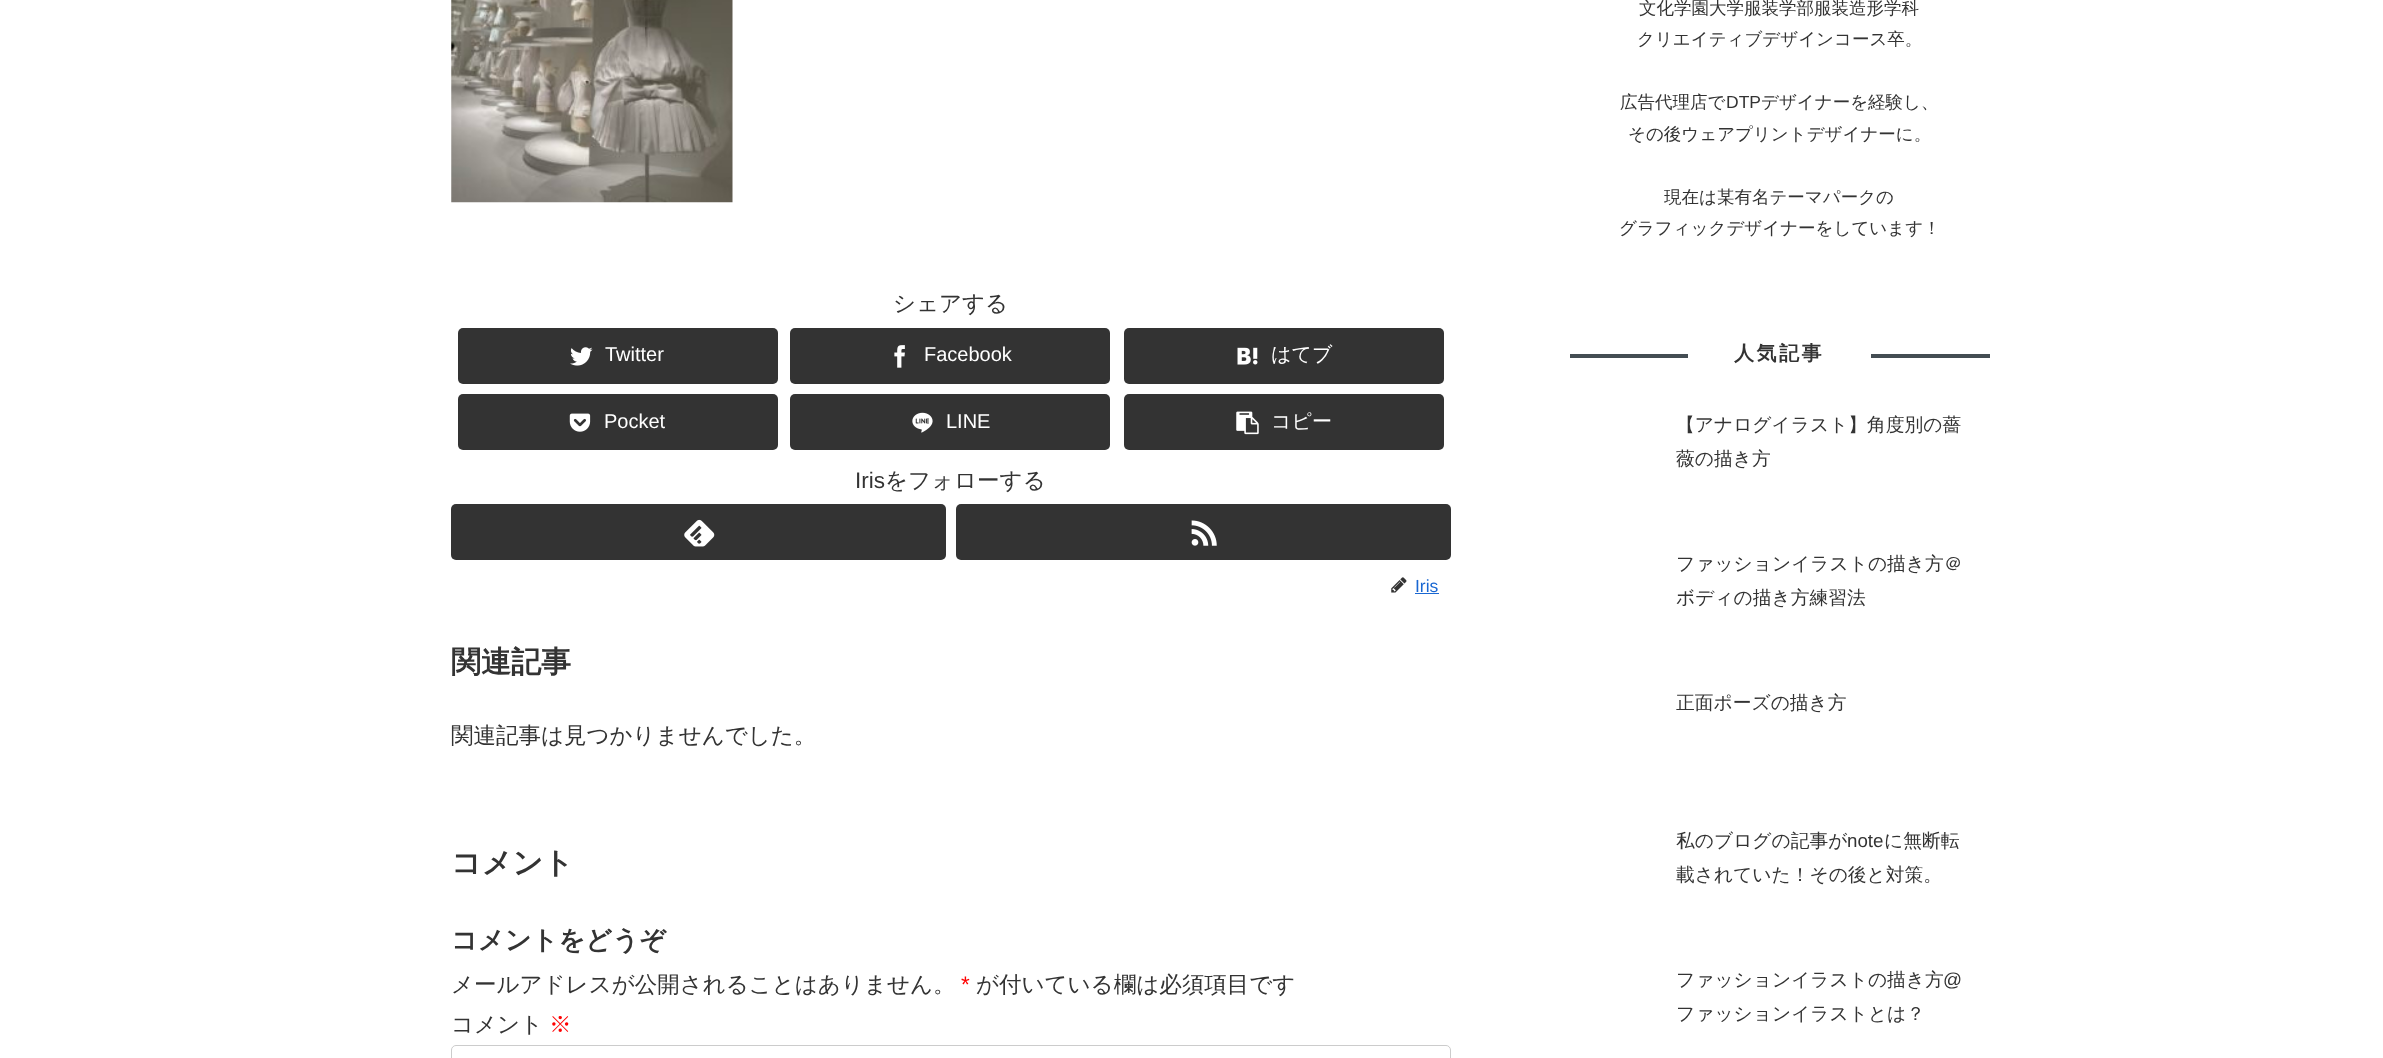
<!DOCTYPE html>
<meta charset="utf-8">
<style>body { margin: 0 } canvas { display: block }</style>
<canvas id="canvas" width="2383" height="1058"></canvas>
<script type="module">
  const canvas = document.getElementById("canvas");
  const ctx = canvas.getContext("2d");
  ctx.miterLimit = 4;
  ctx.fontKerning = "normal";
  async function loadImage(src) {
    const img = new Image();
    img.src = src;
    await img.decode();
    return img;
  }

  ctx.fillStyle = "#ffffff";
  ctx.fillRect(0, 0, 2383, 1058);
  ctx.drawImage(await loadImage("img1.png"), 451, 0, 282, 203);
  ctx.font = "500 22.5px WenQuanYi Zen Hei";
  ctx.fillStyle = "#333333";
  ctx.fillText("シェアする", 893, 311);
  ctx.beginPath();
  ctx.roundRect(458, 328, 320, 56, 5);
  ctx.fill();
  ctx.drawImage(await loadImage("img2.png"), 570, 347, 23, 19);
  ctx.font = "20px Liberation Sans";
  ctx.fillStyle = "#ffffff";
  ctx.fillText("Twitter", 605, 361);
  ctx.fillStyle = "#333333";
  ctx.beginPath();
  ctx.roundRect(790, 328, 320, 56, 5);
  ctx.fill();
  ctx.drawImage(await loadImage("img3.png"), 894, 345, 11, 23);
  ctx.fillStyle = "#ffffff";
  ctx.fillText("Facebook", 924, 361);
  ctx.fillStyle = "#333333";
  ctx.beginPath();
  ctx.roundRect(1124, 328, 320, 56, 5);
  ctx.fill();
  ctx.drawImage(await loadImage("img4.png"), 1237, 347, 21, 18);
  ctx.font = "500 20px WenQuanYi Zen Hei";
  ctx.fillStyle = "#ffffff";
  ctx.fillText("はてブ", 1271, 361);
  ctx.fillStyle = "#333333";
  ctx.beginPath();
  ctx.roundRect(458, 394, 320, 56, 5);
  ctx.fill();
  ctx.drawImage(await loadImage("img5.png"), 569, 413, 22, 19);
  ctx.font = "20px Liberation Sans";
  ctx.fillStyle = "#ffffff";
  ctx.fillText("Pocket", 604, 428);
  ctx.fillStyle = "#333333";
  ctx.beginPath();
  ctx.roundRect(790, 394, 320, 56, 5);
  ctx.fill();
  ctx.drawImage(await loadImage("img6.png"), 912, 412, 21, 21);
  ctx.fillStyle = "#ffffff";
  ctx.fillText("LINE", 946, 428);
  ctx.fillStyle = "#333333";
  ctx.beginPath();
  ctx.roundRect(1124, 394, 320, 56, 5);
  ctx.fill();
  ctx.drawImage(await loadImage("img7.png"), 1236, 411, 23, 24);
  ctx.font = "500 20px WenQuanYi Zen Hei";
  ctx.fillStyle = "#ffffff";
  ctx.fillText("コピー", 1271, 428);
  ctx.font = "22.5px Liberation Sans";
  ctx.fillStyle = "#333333";
  ctx.fillText("Iris", 855, 488);
  ctx.font = "500 22.5px WenQuanYi Zen Hei";
  ctx.fillText("をフォローする", 885, 488);
  ctx.beginPath();
  ctx.roundRect(451, 504, 495, 56, 5);
  ctx.fill();
  ctx.drawImage(await loadImage("img8.png"), 684, 519, 31, 28);
  ctx.beginPath();
  ctx.roundRect(956, 504, 495, 56, 5);
  ctx.fill();
  ctx.drawImage(await loadImage("img9.png"), 1191, 520, 26, 26);
  ctx.drawImage(await loadImage("img10.png"), 1391, 577, 16, 16);
  ctx.font = "17.5px Liberation Sans";
  ctx.fillStyle = "#1967d2";
  ctx.fillText("Iris", 1415, 592);
  ctx.fillRect(1415, 593, 24, 1);
  ctx.font = "bold 30px WenQuanYi Zen Hei";
  ctx.fillStyle = "#333333";
  ctx.fillText("関連記事", 451, 672);
  ctx.font = "500 22.5px WenQuanYi Zen Hei";
  ctx.fillText("関連記事は見つかりませんでした。", 451, 743);
  ctx.font = "bold 30px WenQuanYi Zen Hei";
  ctx.fillText("コメント", 451, 873);
  ctx.font = "bold 26.25px WenQuanYi Zen Hei";
  ctx.fillText("コメントをどうぞ", 451, 949);
  ctx.font = "500 22.5px WenQuanYi Zen Hei";
  ctx.fillText("メールアドレスが公開されることはありません。", 451, 992);
  ctx.font = "22.5px Liberation Sans";
  ctx.fillStyle = "#ff0000";
  ctx.fillText("*", 961, 992);
  ctx.font = "500 22.5px WenQuanYi Zen Hei";
  ctx.fillStyle = "#333333";
  ctx.fillText("が付いている欄は必須項目です", 976, 992);
  ctx.fillText("コメント", 451, 1032);
  ctx.fillStyle = "#ff0000";
  ctx.fillText("※", 549, 1032);
  ctx.beginPath();
  ctx.roundRect(451.5, 1045.5, 999, 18, 4.5);
  ctx.strokeStyle = "#cccccc";
  ctx.stroke();
  ctx.font = "500 17.5px WenQuanYi Zen Hei";
  ctx.fillStyle = "#333333";
  ctx.fillText("文化学園大学服装学部服装造形学科", 1639, 14);
  ctx.fillText("クリエイティブデザインコース卒。", 1637, 45);
  ctx.fillText("広告代理店で", 1620, 108);
  ctx.font = "17.5px Liberation Sans";
  ctx.fillText("DTP", 1726, 108);
  ctx.font = "500 17.5px WenQuanYi Zen Hei";
  ctx.fillText("デザイナーを経験し、", 1761, 108);
  ctx.fillText("その後ウェアプリントデザイナーに。", 1628, 140);
  ctx.fillText("現在は某有名テーマパークの", 1664, 203);
  ctx.fillText("グラフィックデザイナーをしています！", 1619, 234);
  ctx.fillStyle = "#444d53";
  ctx.fillRect(1570, 354, 118, 4);
  ctx.letterSpacing = "2.5px";
  ctx.font = "bold 20px WenQuanYi Zen Hei";
  ctx.fillStyle = "#333333";
  ctx.fillText("人気記事", 1734, 360);
  ctx.fillStyle = "#444d53";
  ctx.fillRect(1871, 354, 119, 4);
  ctx.letterSpacing = "0px";
  ctx.font = "500 18.75px WenQuanYi Zen Hei";
  ctx.fillStyle = "#333333";
  ctx.fillText("【アナログイラスト】角度別の薔", 1676, 431);
  ctx.fillText("薇の描き方", 1676, 465);
  ctx.fillText("ファッションイラストの描き方＠", 1676, 570);
  ctx.fillText("ボディの描き方練習法", 1676, 604);
  ctx.fillText("正面ポーズの描き方", 1676, 709);
  ctx.fillText("私のブログの記事が", 1676, 847);
  ctx.font = "18.75px Liberation Sans";
  ctx.fillText("note", 1847, 847);
  ctx.font = "500 18.75px WenQuanYi Zen Hei";
  ctx.fillText("に無断転", 1884, 847);
  ctx.fillText("載されていた！その後と対策。", 1676, 881);
  ctx.fillText("ファッションイラストの描き方", 1676, 986);
  ctx.font = "18.75px Liberation Sans";
  ctx.fillText("@", 1943, 986);
  ctx.font = "500 18.75px WenQuanYi Zen Hei";
  ctx.fillText("ファッションイラストとは？", 1676, 1020);
</script>
